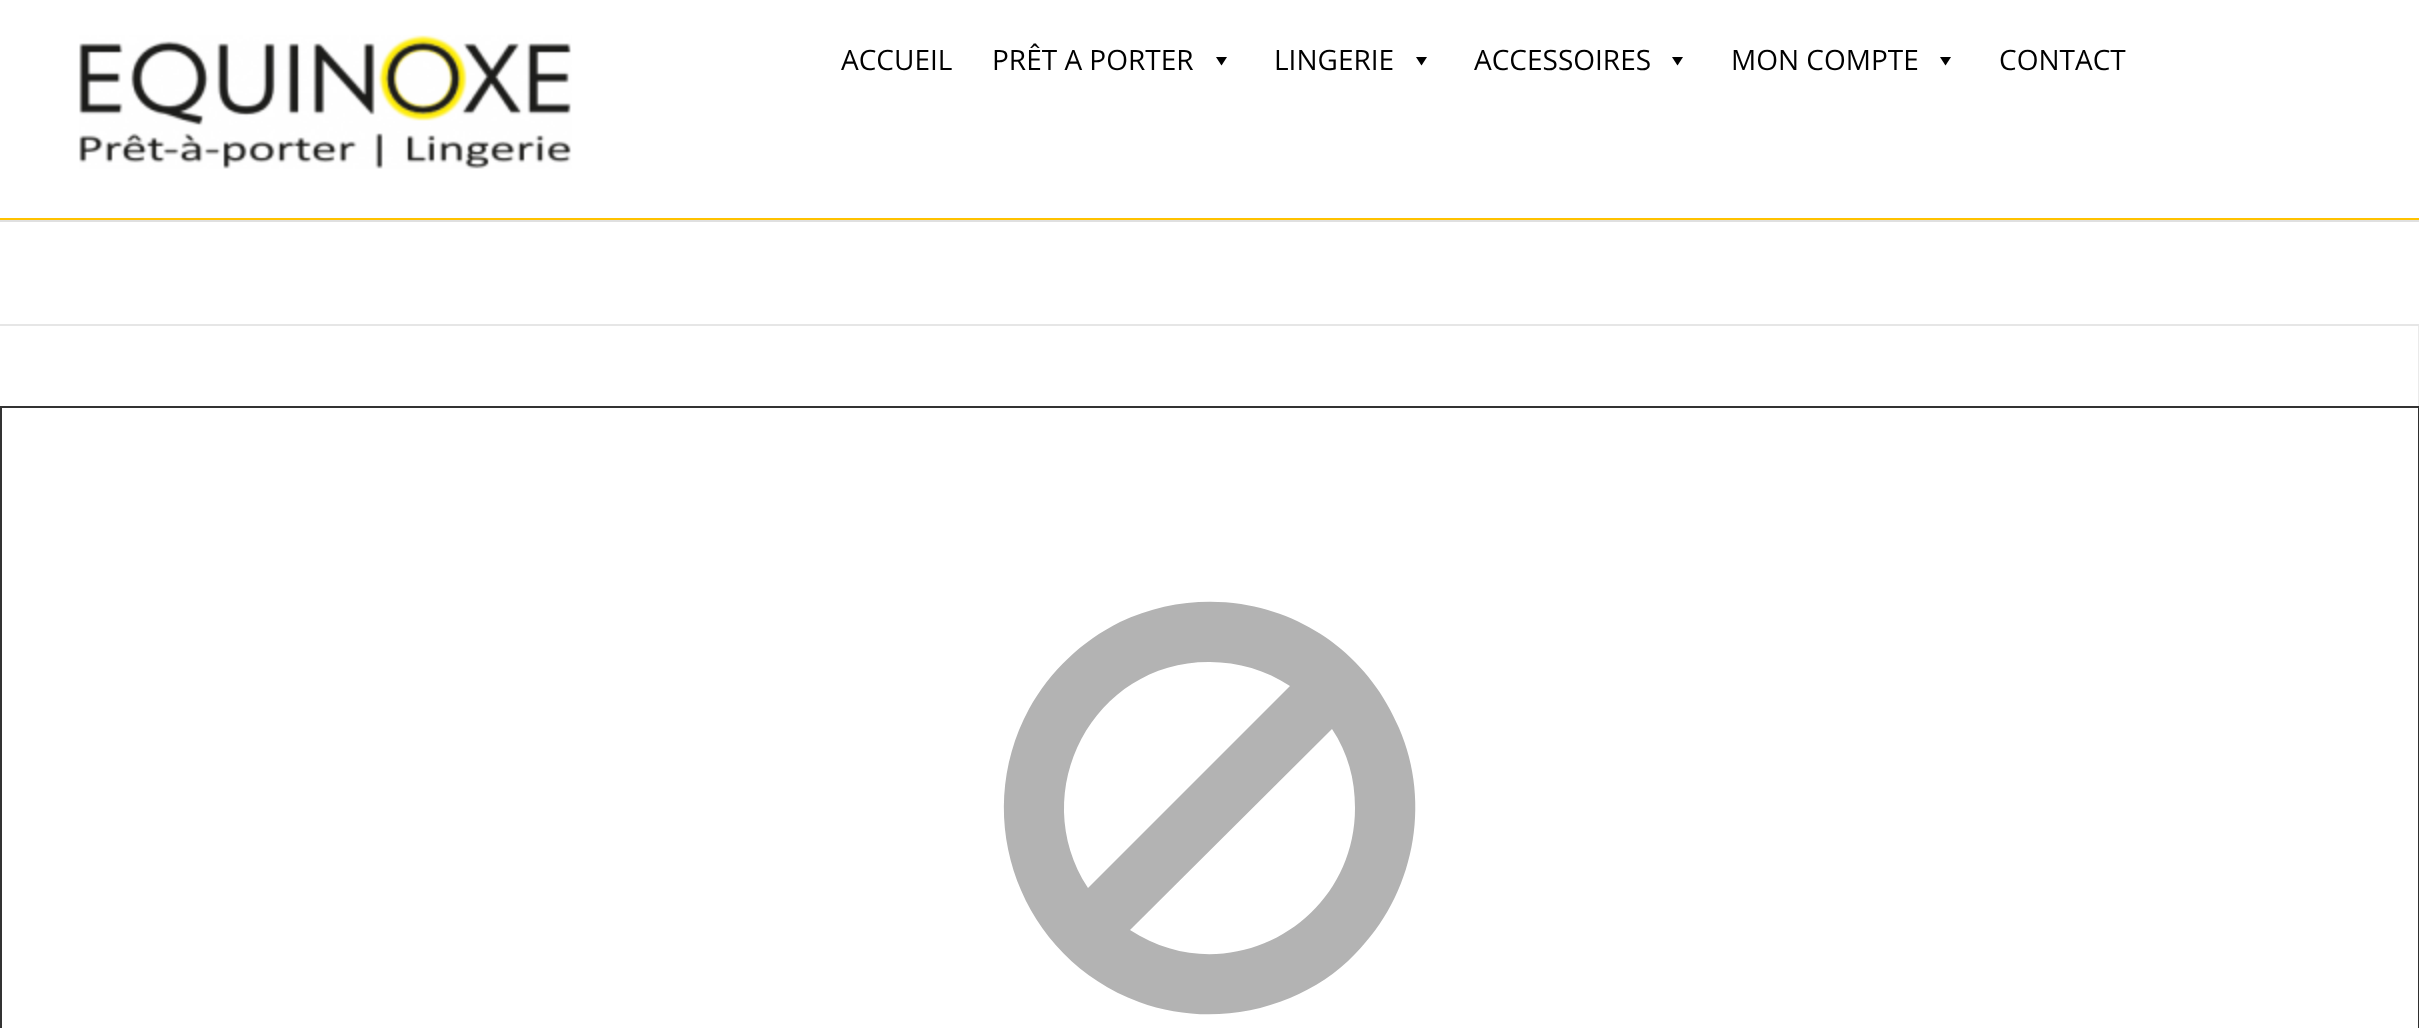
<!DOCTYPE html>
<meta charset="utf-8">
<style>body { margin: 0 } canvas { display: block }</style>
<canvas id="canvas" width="2419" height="1028"></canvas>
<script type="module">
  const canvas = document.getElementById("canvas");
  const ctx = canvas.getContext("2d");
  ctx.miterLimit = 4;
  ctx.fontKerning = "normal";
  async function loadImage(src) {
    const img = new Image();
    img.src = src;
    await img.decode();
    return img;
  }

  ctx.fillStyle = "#ffffff";
  ctx.fillRect(0, 0, 2419, 1028);
  ctx.fillStyle = "#e0e0e0";
  ctx.fillRect(0, 220, 2419, 2);
  ctx.fillStyle = "#ffc200";
  ctx.fillRect(0, 218, 2419, 2);
  ctx.drawImage(await loadImage("img1.png"), 79, 35, 493, 134);
  ctx.font = "28px Open Sans";
  ctx.fillStyle = "#000000";
  ctx.fillText("ACCUEIL", 841, 70);
  ctx.fillText("PRÊT A PORTER", 992, 70);
  ctx.beginPath();
  ctx.moveTo(1227, 57);
  ctx.lineTo(1221.5, 65.5);
  ctx.lineTo(1216, 57);
  ctx.closePath();
  ctx.fill();
  ctx.fillText("LINGERIE", 1274, 70);
  ctx.beginPath();
  ctx.moveTo(1427, 57);
  ctx.lineTo(1421.5, 65.5);
  ctx.lineTo(1416, 57);
  ctx.closePath();
  ctx.fill();
  ctx.fillText("ACCESSOIRES", 1474, 70);
  ctx.beginPath();
  ctx.moveTo(1683, 57);
  ctx.lineTo(1677.5, 65.5);
  ctx.lineTo(1672, 57);
  ctx.closePath();
  ctx.fill();
  ctx.fillText("MON COMPTE", 1731, 70);
  ctx.beginPath();
  ctx.moveTo(1951, 57);
  ctx.lineTo(1945.5, 65.5);
  ctx.lineTo(1940, 57);
  ctx.closePath();
  ctx.fill();
  ctx.fillText("CONTACT", 1999, 70);
  ctx.fillStyle = "#e6e6e6";
  ctx.fillRect(0, 324, 2419, 2);
  ctx.fillStyle = "#eaeaea";
  ctx.fillRect(2418, 326, 1, 702);
  ctx.strokeStyle = "rgba(0, 0, 0, 0.8)";
  ctx.lineWidth = 2;
  ctx.strokeRect(1, 407, 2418, 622);
  ctx.fillStyle = "#b3b3b3";
  ctx.beginPath();
  ctx.moveTo(1355, 808);
  ctx.bezierCurveTo(1355, 779, 1348, 753, 1332, 729);
  ctx.lineTo(1130, 930);
  ctx.bezierCurveTo(1228, 994, 1355, 923, 1355, 808);
  ctx.closePath();
  ctx.moveTo(1088, 888);
  ctx.lineTo(1290, 686);
  ctx.bezierCurveTo(1266, 670, 1238, 662, 1210, 662);
  ctx.bezierCurveTo(1094, 661, 1025, 791, 1088, 888);
  ctx.closePath();
  ctx.moveTo(1399, 728);
  ctx.bezierCurveTo(1432, 804, 1414, 895, 1355, 954);
  ctx.bezierCurveTo(1337, 973, 1314, 988, 1290, 998);
  ctx.bezierCurveTo(1242, 1018, 1188, 1020, 1139, 1002);
  ctx.bezierCurveTo(1021, 958, 969, 820, 1029, 709);
  ctx.bezierCurveTo(1050, 671, 1082, 641, 1120, 622);
  ctx.bezierCurveTo(1158, 604, 1200, 598, 1241, 604);
  ctx.bezierCurveTo(1312, 615, 1371, 661, 1399, 728);
  ctx.closePath();
  ctx.fill();
</script>
